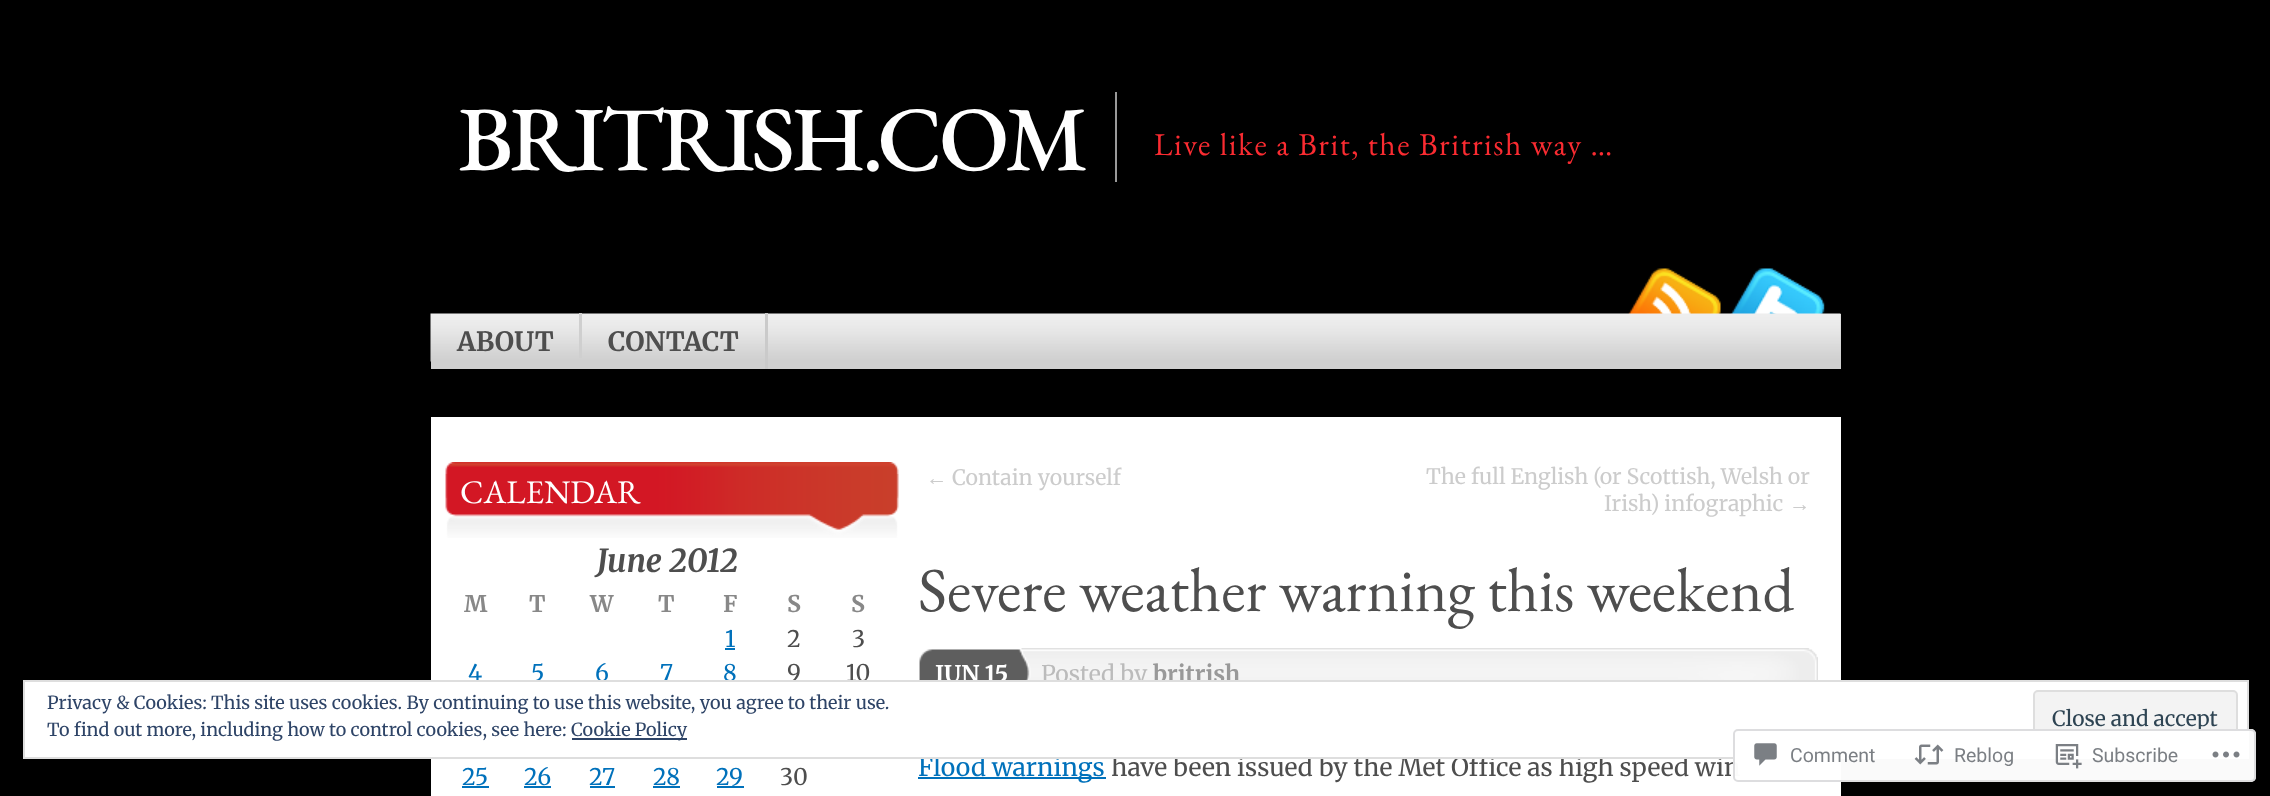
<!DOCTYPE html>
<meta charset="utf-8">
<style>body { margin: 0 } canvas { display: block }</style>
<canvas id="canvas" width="2270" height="796"></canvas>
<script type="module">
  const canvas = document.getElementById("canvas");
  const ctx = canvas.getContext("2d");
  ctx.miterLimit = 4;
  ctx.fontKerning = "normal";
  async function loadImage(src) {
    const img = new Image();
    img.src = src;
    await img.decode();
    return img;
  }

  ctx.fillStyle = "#000000";
  ctx.fillRect(0, 0, 2270, 796);
  ctx.fillStyle = "#999999";
  ctx.fillRect(1115, 92, 2, 90);
  ctx.letterSpacing = "-3.75px";
  ctx.font = "500 92px EB Garamond";
  ctx.fillStyle = "#ffffff";
  ctx.fillText("BRITRISH.COM", 458, 170);
  ctx.letterSpacing = "1.5px";
  ctx.font = "31.75px EB Garamond";
  ctx.fillStyle = "#fa2b31";
  ctx.fillText("Live like a Brit, the Britrish way …", 1154, 155);
  ctx.fillStyle = "#d0d0d0";
  ctx.fillRect(431, 314, 1410, 55);
  ctx.drawImage(await loadImage("img1.png"), 1628, 268, 93, 46);
  ctx.drawImage(await loadImage("img2.png"), 1730, 268, 95, 46);
  ctx.drawImage(await loadImage("img3.png"), 430, 313, 1411, 49);
  ctx.fillStyle = "#cfcfcf";
  ctx.fillRect(579, 313, 3, 45);
  ctx.letterSpacing = "0px";
  ctx.font = "bold 26.5px Merriweather";
  ctx.fillStyle = "#4e4e4e";
  ctx.fillText("ABOUT", 457, 351);
  ctx.fillStyle = "#cacaca";
  ctx.fillRect(765, 313, 3, 56);
  ctx.fillStyle = "#4e4e4e";
  ctx.fillText("CONTACT", 608, 351);
  ctx.fillStyle = "#ffffff";
  ctx.fillRect(431, 417, 1410, 379);
  ctx.drawImage(await loadImage("img4.png"), 445, 462, 454, 12);
  ctx.drawImage(await loadImage("img5.png"), 445, 474, 454, 64);
  ctx.font = "33px EB Garamond";
  ctx.fillText("CALENDAR", 460, 503);
  ctx.font = "italic bold 31.75px Merriweather";
  ctx.fillStyle = "#4e4e4e";
  ctx.fillText("June 2012", 597, 572);
  ctx.font = "bold 23px Merriweather";
  ctx.fillStyle = "#888888";
  ctx.fillText("M", 464, 612);
  ctx.fillText("T", 529, 612);
  ctx.fillText("W", 590, 612);
  ctx.fillText("T", 658, 612);
  ctx.fillText("F", 723, 612);
  ctx.fillText("S", 787, 612);
  ctx.fillText("S", 851, 612);
  ctx.font = "23px Merriweather";
  ctx.fillStyle = "#0071bb";
  ctx.fillText("1", 725, 647);
  ctx.fillRect(725, 648, 10, 2);
  ctx.fillStyle = "#4e4e4e";
  ctx.fillText("2", 787, 647);
  ctx.fillText("3", 852, 647);
  ctx.fillStyle = "#0071bb";
  ctx.fillText("4", 468, 681);
  ctx.fillText("5", 531, 681);
  ctx.fillText("6", 595, 681);
  ctx.fillText("7", 660, 681);
  ctx.fillText("8", 723, 681);
  ctx.fillStyle = "#4e4e4e";
  ctx.fillText("9", 787, 681);
  ctx.fillText("10", 846, 681);
  ctx.fillStyle = "#0071bb";
  ctx.fillText("25", 462, 785);
  ctx.fillRect(462, 786, 27, 2);
  ctx.fillText("26", 524, 785);
  ctx.fillRect(524, 786, 27, 2);
  ctx.fillText("27", 589, 785);
  ctx.fillRect(590, 786, 25, 2);
  ctx.fillText("28", 653, 785);
  ctx.fillRect(653, 786, 27, 2);
  ctx.fillRect(717, 786, 27, 2);
  ctx.fillText("29", 716, 785);
  ctx.fillStyle = "#4e4e4e";
  ctx.fillText("30", 780, 785);
  ctx.font = "21.25px Liberation Serif";
  ctx.fillStyle = "#cccccc";
  ctx.fillText("←", 926, 485);
  ctx.font = "21.25px Merriweather";
  ctx.fillText("Contain yourself", 952, 485);
  ctx.fillText("The full English (or Scottish, Welsh or", 1426, 484);
  ctx.fillText("Irish) infographic", 1604, 511);
  ctx.font = "21.25px Liberation Serif";
  ctx.fillText("→", 1789, 511);
  ctx.font = "62.4px EB Garamond";
  ctx.fillStyle = "#4e4e4e";
  ctx.fillText("Severe weather warning this weekend", 918, 611);
  ctx.drawImage(await loadImage("img6.png"), 919, 649, 16, 31);
  ctx.drawImage(await loadImage("img7.png"), 935, 648, 97, 32);
  ctx.font = "bold 23px Merriweather";
  ctx.fillStyle = "#ffffff";
  ctx.fillText("JUN 15", 935, 682);
  ctx.drawImage(await loadImage("img8.png"), 1032, 648, 786, 32);
  ctx.font = "23px Merriweather";
  ctx.fillStyle = "#bbbbbb";
  ctx.fillText("Posted by", 1041, 682);
  ctx.font = "bold 23px Merriweather";
  ctx.fillStyle = "#999999";
  ctx.fillText("britrish", 1153, 682);
  ctx.fillStyle = "#0071bb";
  ctx.fillRect(918, 777, 188, 2);
  ctx.font = "24.75px Merriweather";
  ctx.fillText("Flood warnings", 918, 776);
  ctx.fillStyle = "#4e4e4e";
  ctx.fillText("have been issued by the Met Office as high speed win", 1111, 776);
  ctx.fillStyle = "#ffffff";
  ctx.beginPath();
  ctx.rect(24, 681, 2224, 77);
  ctx.fill();
  ctx.strokeStyle = "#dedede";
  ctx.lineWidth = 2;
  ctx.stroke();
  ctx.font = "18px Merriweather";
  ctx.fillStyle = "#2e4467";
  ctx.fillText("Privacy & Cookies: This site uses cookies. By continuing to use this website, you agree to their use.", 47, 709);
  ctx.fillText("To find out more, including how to control cookies, see here:", 47, 736);
  ctx.fillRect(572, 738, 115, 2);
  ctx.fillText("Cookie Policy", 571, 736);
  ctx.fillStyle = "#f3f3f3";
  ctx.beginPath();
  ctx.roundRect(2034, 691, 203, 57, 4);
  ctx.fill();
  ctx.stroke();
  ctx.font = "21px Merriweather";
  ctx.fillStyle = "#2e4453";
  ctx.fillText("Close and accept", 2052, 726);
  ctx.fillStyle = "rgba(255, 255, 255, 0.98)";
  ctx.beginPath();
  ctx.roundRect(1733, 729, 523, 53, 5);
  ctx.fill();
  ctx.beginPath();
  ctx.roundRect(1734, 730, 521, 51, 4);
  ctx.strokeStyle = "rgba(220, 220, 222, 0.98)";
  ctx.stroke();
  ctx.drawImage(await loadImage("img9.png"), 1754, 743, 23, 23);
  ctx.font = "19.5px Roboto";
  ctx.fillStyle = "#7b7f84";
  ctx.fillText("Comment", 1790, 762);
  ctx.drawImage(await loadImage("img10.png"), 1914, 744, 30, 21);
  ctx.fillText("Reblog", 1954, 762);
  ctx.drawImage(await loadImage("img11.png"), 2055, 744, 27, 25);
  ctx.fillText("Subscribe", 2092, 762);
  ctx.drawImage(await loadImage("img12.png"), 2212, 751, 28, 7);
</script>
